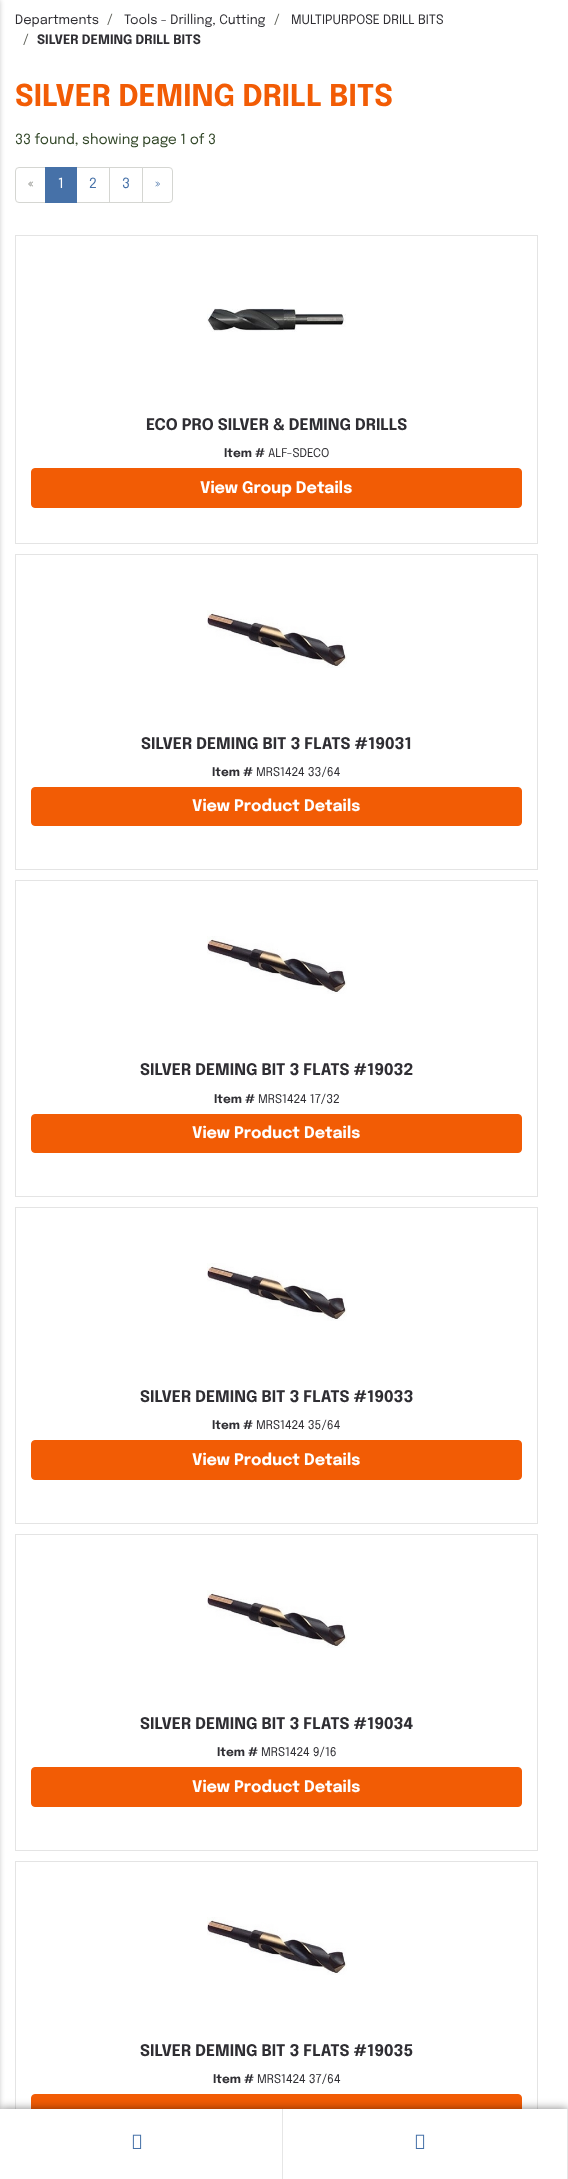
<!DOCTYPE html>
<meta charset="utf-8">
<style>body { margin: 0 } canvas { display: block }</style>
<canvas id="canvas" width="568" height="2179"></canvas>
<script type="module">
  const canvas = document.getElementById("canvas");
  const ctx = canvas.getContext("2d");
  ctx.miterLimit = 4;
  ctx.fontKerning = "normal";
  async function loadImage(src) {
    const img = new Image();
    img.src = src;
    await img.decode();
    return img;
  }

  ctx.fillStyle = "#ffffff";
  ctx.fillRect(0, 0, 568, 2179);
  ctx.fillStyle = "rgba(0, 0, 0, 0.2)";
  ctx.filter = "blur(2.5px)";
  ctx.beginPath();
  ctx.rect(-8, 0, 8, 2179);
  ctx.fill();
  ctx.filter = "none";
  ctx.font = "13px Epilogue";
  ctx.fillStyle = "#2f2e33";
  ctx.fillText("Departments", 15, 24);
  ctx.fillStyle = "#5b5d55";
  ctx.fillText("/", 107, 24);
  ctx.fillStyle = "#2f2e33";
  ctx.fillText("Tools - Drilling, Cutting", 124, 24);
  ctx.fillStyle = "#5b5d55";
  ctx.fillText("/", 274, 24);
  ctx.fillStyle = "#2f2e33";
  ctx.fillText("MULTIPURPOSE DRILL BITS", 291, 24);
  ctx.fillStyle = "#5b5d55";
  ctx.fillText("/", 23, 44);
  ctx.font = "bold 13px Epilogue";
  ctx.fillStyle = "#2f2e33";
  ctx.fillText("SILVER DEMING DRILL BITS", 37, 44);
  ctx.font = "bold 30px Epilogue";
  ctx.fillStyle = "#f25c05";
  ctx.fillText("SILVER DEMING DRILL BITS", 15, 106);
  ctx.font = "14px Epilogue";
  ctx.fillStyle = "#324728";
  ctx.fillText("33 found, showing page 1 of 3", 15, 144);
  ctx.beginPath();
  ctx.roundRect(15.5, 167.5, 30, 35, [3.5, 0, 0, 3.5]);
  ctx.strokeStyle = "#d5d6d2";
  ctx.stroke();
  ctx.fillStyle = "#5b5d55";
  ctx.fillText("«", 28, 188);
  ctx.strokeRect(76.5, 167.5, 33, 35);
  ctx.fillStyle = "#4671a8";
  ctx.fillRect(45, 167, 32, 36);
  ctx.fillStyle = "#ffffff";
  ctx.fillText("1", 58, 188);
  ctx.fillStyle = "#4671a8";
  ctx.fillText("2", 89, 188);
  ctx.strokeRect(109.5, 167.5, 33, 35);
  ctx.fillText("3", 122, 188);
  ctx.fillStyle = "#ffffff";
  ctx.beginPath();
  ctx.roundRect(142.5, 167.5, 30, 35, [0, 3.5, 3.5, 0]);
  ctx.fill();
  ctx.stroke();
  ctx.fillStyle = "#4671a8";
  ctx.fillText("»", 155, 188);
  ctx.strokeStyle = "#e4e4e4";
  ctx.strokeRect(15.5, 235.5, 522, 308);
  ctx.drawImage(await loadImage("img1.png"), 207, 308, 139, 24);
  ctx.font = "bold 16px Epilogue";
  ctx.fillStyle = "#2f2e33";
  ctx.fillText("ECO PRO SILVER & DEMING DRILLS", 146, 430);
  ctx.font = "bold 12px Epilogue";
  ctx.fillText("Item #", 224, 457);
  ctx.font = "12px Epilogue";
  ctx.fillText("ALF-SDECO", 268, 457);
  ctx.fillStyle = "#f25c05";
  ctx.beginPath();
  ctx.roundRect(31.5, 468.5, 490, 39, 3.5);
  ctx.fill();
  ctx.strokeStyle = "#f25c05";
  ctx.stroke();
  ctx.font = "bold 16px Epilogue";
  ctx.fillStyle = "#ffffff";
  ctx.fillText("View Group Details", 200, 493);
  ctx.strokeStyle = "#e4e4e4";
  ctx.strokeRect(15.5, 554.5, 522, 315);
  ctx.drawImage(await loadImage("img2.png"), 207, 610, 140, 58);
  ctx.fillStyle = "#2f2e33";
  ctx.fillText("SILVER DEMING BIT 3 FLATS #19031", 141, 749);
  ctx.font = "bold 12px Epilogue";
  ctx.fillText("Item #", 212, 776);
  ctx.font = "12px Epilogue";
  ctx.fillText("MRS1424 33/64", 256, 776);
  ctx.fillStyle = "#f25c05";
  ctx.beginPath();
  ctx.roundRect(31.5, 787.5, 490, 38, 3.5);
  ctx.fill();
  ctx.strokeStyle = "#f25c05";
  ctx.stroke();
  ctx.font = "bold 16px Epilogue";
  ctx.fillStyle = "#ffffff";
  ctx.fillText("View Product Details", 192, 811);
  ctx.strokeStyle = "#e4e4e4";
  ctx.strokeRect(15.5, 880.5, 522, 316);
  ctx.drawImage(await loadImage("img3.png"), 207, 936, 140, 58);
  ctx.fillStyle = "#2f2e33";
  ctx.fillText("SILVER DEMING BIT 3 FLATS #19032", 140, 1075);
  ctx.font = "bold 12px Epilogue";
  ctx.fillText("Item #", 214, 1103);
  ctx.font = "12px Epilogue";
  ctx.fillText("MRS1424 17/32", 258, 1103);
  ctx.fillStyle = "#f25c05";
  ctx.beginPath();
  ctx.roundRect(31.5, 1114.5, 490, 38, 3.5);
  ctx.fill();
  ctx.strokeStyle = "#f25c05";
  ctx.stroke();
  ctx.font = "bold 16px Epilogue";
  ctx.fillStyle = "#ffffff";
  ctx.fillText("View Product Details", 192, 1138);
  ctx.strokeStyle = "#e4e4e4";
  ctx.strokeRect(15.5, 1207.5, 522, 316);
  ctx.drawImage(await loadImage("img2.png"), 207, 1263, 140, 58);
  ctx.fillStyle = "#2f2e33";
  ctx.fillText("SILVER DEMING BIT 3 FLATS #19033", 140, 1402);
  ctx.font = "bold 12px Epilogue";
  ctx.fillText("Item #", 212, 1429);
  ctx.font = "12px Epilogue";
  ctx.fillText("MRS1424 35/64", 256, 1429);
  ctx.fillStyle = "#f25c05";
  ctx.beginPath();
  ctx.roundRect(31.5, 1440.5, 490, 39, 3.5);
  ctx.fill();
  ctx.strokeStyle = "#f25c05";
  ctx.stroke();
  ctx.font = "bold 16px Epilogue";
  ctx.fillStyle = "#ffffff";
  ctx.fillText("View Product Details", 192, 1465);
  ctx.strokeStyle = "#e4e4e4";
  ctx.strokeRect(15.5, 1534.5, 522, 316);
  ctx.drawImage(await loadImage("img2.png"), 207, 1590, 140, 58);
  ctx.fillStyle = "#2f2e33";
  ctx.fillText("SILVER DEMING BIT 3 FLATS #19034", 140, 1729);
  ctx.font = "bold 12px Epilogue";
  ctx.fillText("Item #", 217, 1756);
  ctx.font = "12px Epilogue";
  ctx.fillText("MRS1424 9/16", 261, 1756);
  ctx.fillStyle = "#f25c05";
  ctx.beginPath();
  ctx.roundRect(31.5, 1767.5, 490, 39, 3.5);
  ctx.fill();
  ctx.strokeStyle = "#f25c05";
  ctx.stroke();
  ctx.font = "bold 16px Epilogue";
  ctx.fillStyle = "#ffffff";
  ctx.fillText("View Product Details", 192, 1792);
  ctx.strokeStyle = "#e4e4e4";
  ctx.strokeRect(15.5, 1861.5, 522, 315);
  ctx.drawImage(await loadImage("img4.png"), 207, 1917, 140, 58);
  ctx.fillStyle = "#2f2e33";
  ctx.fillText("SILVER DEMING BIT 3 FLATS #19035", 140, 2056);
  ctx.font = "bold 12px Epilogue";
  ctx.fillText("Item #", 213, 2083);
  ctx.font = "12px Epilogue";
  ctx.fillText("MRS1424 37/64", 257, 2083);
  ctx.fillStyle = "#f25c05";
  ctx.beginPath();
  ctx.roundRect(31.5, 2094.5, 490, 38, 3.5);
  ctx.fill();
  ctx.strokeStyle = "#f25c05";
  ctx.stroke();
  ctx.fillStyle = "rgba(0, 0, 0, 0.5)";
  ctx.filter = "blur(5px)";
  ctx.beginPath();
  ctx.rect(0, 2109, 568, 70);
  ctx.fill();
  ctx.filter = "none";
  ctx.fillStyle = "#ffffff";
  ctx.fillRect(0, 2109, 567, 70);
  ctx.fillStyle = "#e6e6e6";
  ctx.fillRect(282, 2109, 1, 70);
  ctx.drawImage(await loadImage("img5.png"), 132, 2134, 10, 15);
  ctx.fillRect(567, 2109, 1, 70);
  ctx.drawImage(await loadImage("img5.png"), 415, 2134, 10, 15);
</script>
